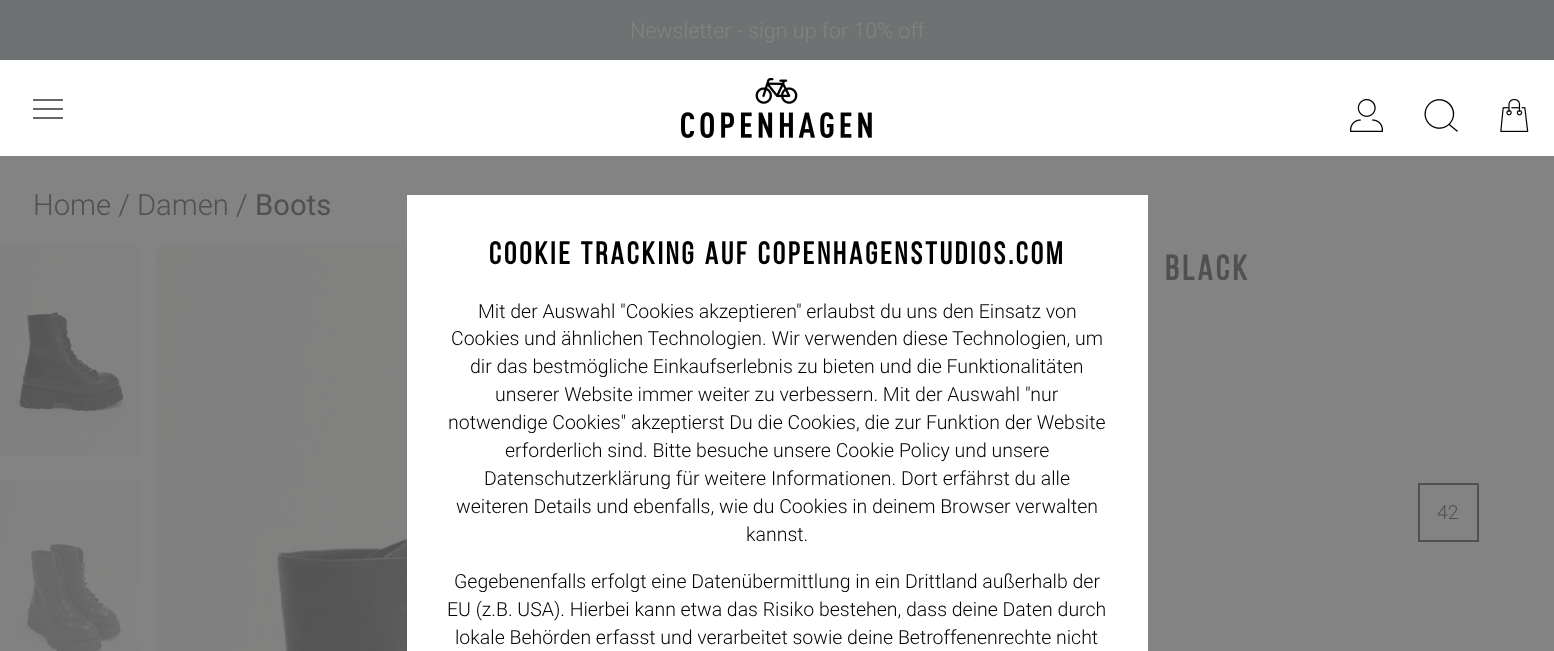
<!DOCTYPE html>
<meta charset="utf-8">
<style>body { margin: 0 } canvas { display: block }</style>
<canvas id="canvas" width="1554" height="651"></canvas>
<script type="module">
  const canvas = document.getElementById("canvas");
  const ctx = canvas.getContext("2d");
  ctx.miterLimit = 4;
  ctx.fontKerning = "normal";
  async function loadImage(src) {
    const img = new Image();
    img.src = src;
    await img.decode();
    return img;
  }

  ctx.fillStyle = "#838383";
  ctx.fillRect(0, 0, 1554, 651);
  ctx.fillStyle = "#6f7273";
  ctx.fillRect(0, 0, 1554, 60);
  ctx.font = "300 21.5px Roboto";
  ctx.fillStyle = "#838383";
  ctx.fillText("Newsletter - sign up for 10% off", 630, 38);
  ctx.fillStyle = "#ffffff";
  ctx.fillRect(407, 195, 741, 456);
  ctx.letterSpacing = "3.1px";
  ctx.font = "bold 31.25px Bebas Neue";
  ctx.fillStyle = "#000000";
  ctx.fillText("COOKIE TRACKING AUF COPENHAGENSTUDIOS.COM", 489, 264);
  ctx.letterSpacing = "0px";
  ctx.font = "300 19.5px Roboto";
  ctx.fillText("Mit der Auswahl \"Cookies akzeptieren\" erlaubst du uns den Einsatz von", 478, 318);
  ctx.fillText("Cookies und ähnlichen Technologien. Wir verwenden diese Technologien, um", 451, 345);
  ctx.fillText("dir das bestmögliche Einkaufserlebnis zu bieten und die Funktionalitäten", 470, 373);
  ctx.fillText("unserer Website immer weiter zu verbessern. Mit der Auswahl \"nur", 495, 401);
  ctx.fillText("notwendige Cookies\" akzeptierst Du die Cookies, die zur Funktion der Website", 448, 429);
  ctx.fillText("erforderlich sind. Bitte besuche unsere Cookie Policy und unsere", 505, 457);
  ctx.fillText("Datenschutzerklärung für weitere Informationen. Dort erfährst du alle", 484, 485);
  ctx.fillText("weiteren Details und ebenfalls, wie du Cookies in deinem Browser verwalten", 456, 513);
  ctx.fillText("kannst.", 746, 541);
  ctx.fillText("Gegebenenfalls erfolgt eine Datenübermittlung in ein Drittland außerhalb der", 454, 588);
  ctx.fillText("EU (z.B. USA). Hierbei kann etwa das Risiko bestehen, dass deine Daten durch", 447, 616);
  ctx.fillText("lokale Behörden erfasst und verarbeitet sowie deine Betroffenenrechte nicht", 455, 644);
  ctx.fillStyle = "#ffffff";
  ctx.fillRect(0, 60, 1554, 96);
  ctx.fillStyle = "#666666";
  ctx.fillRect(33, 99, 30, 2);
  ctx.fillRect(33, 108, 30, 2);
  ctx.fillRect(33, 117, 30, 2);
  ctx.drawImage(await loadImage("img1.png"), 681, 78, 191, 60);
  ctx.drawImage(await loadImage("img2.png"), 1350, 99, 33, 33);
  ctx.drawImage(await loadImage("img3.png"), 1424, 99, 34, 33);
  ctx.drawImage(await loadImage("img4.png"), 1500, 99, 29, 33);
  ctx.font = "300 29.25px Roboto";
  ctx.fillStyle = "#505050";
  ctx.fillText("Home / Damen /", 33, 215);
  ctx.font = "29.25px Roboto";
  ctx.fillText("Boots", 255, 215);
  ctx.drawImage(await loadImage("img5.png"), 0, 246, 140, 210);
  ctx.drawImage(await loadImage("img6.png"), 0, 480, 139, 171);
  ctx.drawImage(await loadImage("img7.png"), 156, 246, 251, 405);
  ctx.letterSpacing = "3.5px";
  ctx.font = "bold 35px Bebas Neue";
  ctx.fillText("black", 1165, 280);
  ctx.strokeStyle = "#505050";
  ctx.lineWidth = 2;
  ctx.strokeRect(1419, 484, 59, 57);
  ctx.letterSpacing = "0px";
  ctx.font = "300 19.5px Roboto";
  ctx.fillText("42", 1437, 519);
</script>
